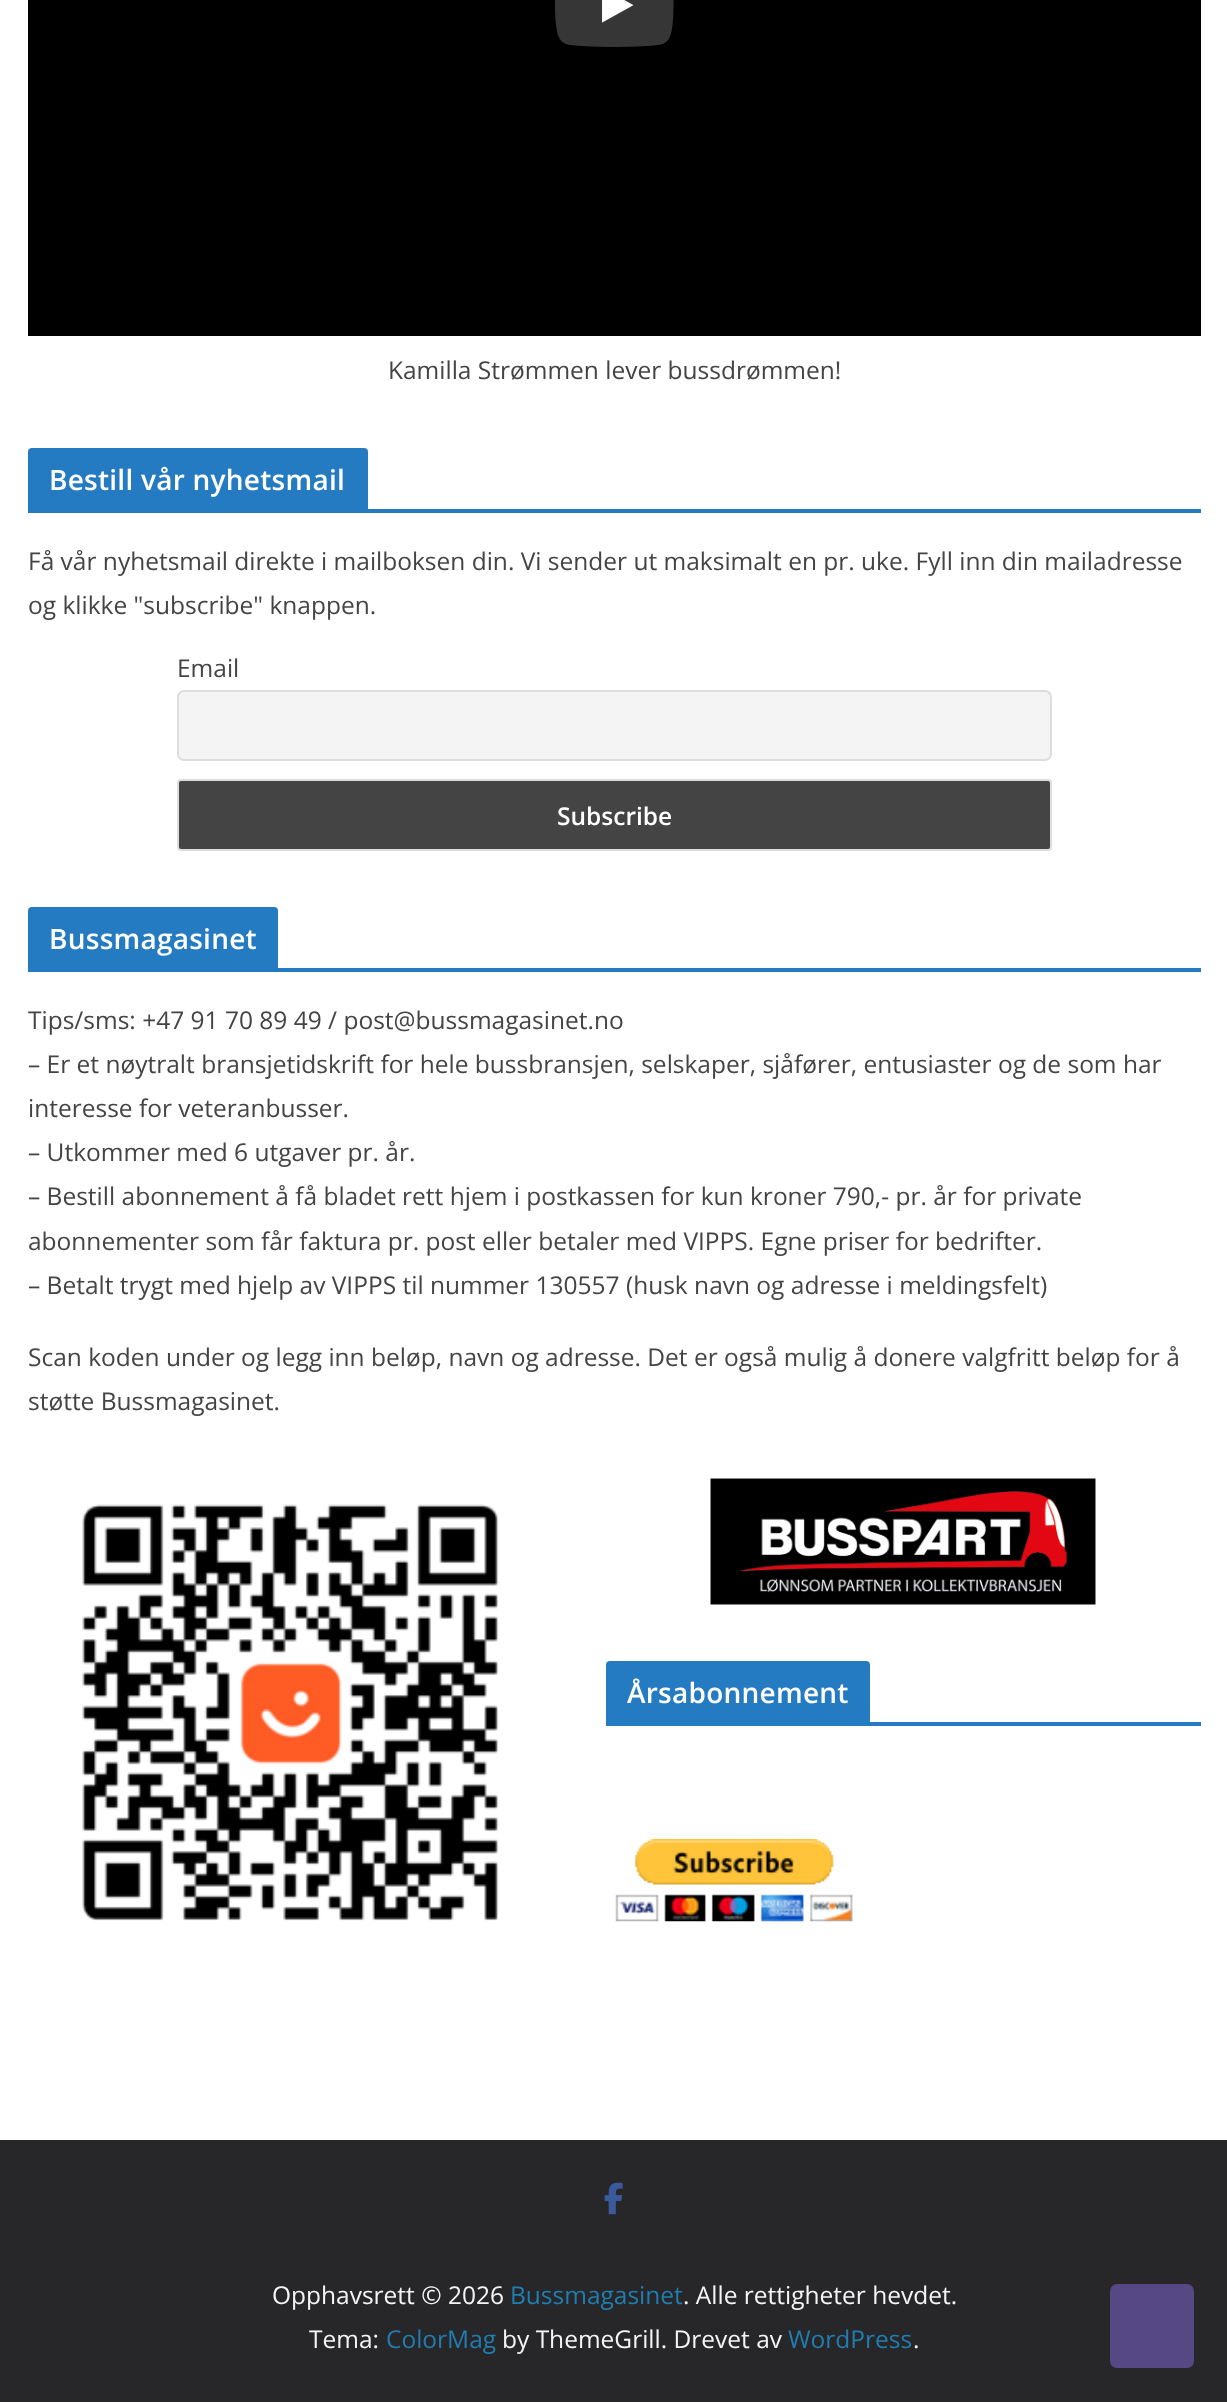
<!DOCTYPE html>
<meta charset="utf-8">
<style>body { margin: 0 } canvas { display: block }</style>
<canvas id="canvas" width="1227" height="2402"></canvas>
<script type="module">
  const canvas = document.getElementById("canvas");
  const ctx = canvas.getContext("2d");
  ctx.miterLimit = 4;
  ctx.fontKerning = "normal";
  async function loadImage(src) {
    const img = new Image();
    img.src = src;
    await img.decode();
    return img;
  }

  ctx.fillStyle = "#ffffff";
  ctx.fillRect(0, 0, 1227, 2402);
  ctx.fillStyle = "#000000";
  ctx.fillRect(28, 0, 1173, 336);
  ctx.drawImage(await loadImage("img1.png"), 555, 0, 119, 47);
  ctx.font = "24.5px Open Sans";
  ctx.fillStyle = "#444444";
  ctx.fillText("Kamilla Strømmen lever bussdrømmen!", 388, 379);
  ctx.fillStyle = "#257bc1";
  ctx.fillRect(28, 509, 1173, 4);
  ctx.beginPath();
  ctx.roundRect(28, 448, 340, 61, [4, 4, 0, 0]);
  ctx.fill();
  ctx.letterSpacing = "0.25px";
  ctx.font = "600 28px Open Sans";
  ctx.fillStyle = "#ffffff";
  ctx.fillText("Bestill vår nyhetsmail", 49, 490);
  ctx.letterSpacing = "0px";
  ctx.font = "24.5px Open Sans";
  ctx.fillStyle = "#444444";
  ctx.fillText("Få vår nyhetsmail direkte i mailboksen din. Vi sender ut maksimalt en pr. uke. Fyll inn din mailadresse", 28, 570);
  ctx.fillText("og klikke \"subscribe\" knappen.", 28, 614);
  ctx.fillText("Email", 177, 677);
  ctx.fillStyle = "#f4f4f4";
  ctx.beginPath();
  ctx.roundRect(178, 691, 873, 69, 6);
  ctx.fill();
  ctx.strokeStyle = "#dddddd";
  ctx.lineWidth = 2;
  ctx.stroke();
  ctx.fillStyle = "#444444";
  ctx.beginPath();
  ctx.roundRect(178, 780, 873, 70, 3);
  ctx.fill();
  ctx.stroke();
  ctx.font = "600 24.5px Open Sans";
  ctx.fillStyle = "#ffffff";
  ctx.fillText("Subscribe", 557, 825);
  ctx.fillStyle = "#257bc1";
  ctx.fillRect(28, 968, 1173, 4);
  ctx.beginPath();
  ctx.roundRect(28, 907, 250, 61, [4, 4, 0, 0]);
  ctx.fill();
  ctx.letterSpacing = "0.25px";
  ctx.font = "600 28px Open Sans";
  ctx.fillStyle = "#ffffff";
  ctx.fillText("Bussmagasinet", 49, 949);
  ctx.letterSpacing = "0px";
  ctx.font = "24.5px Open Sans";
  ctx.fillStyle = "#444444";
  ctx.fillText("Tips/sms: +47 91 70 89 49 / post@bussmagasinet.no", 28, 1029);
  ctx.fillText("– Er et nøytralt bransjetidskrift for hele bussbransjen, selskaper, sjåfører, entusiaster og de som har", 28, 1073);
  ctx.fillText("interesse for veteranbusser.", 28, 1117);
  ctx.fillText("– Utkommer med 6 utgaver pr. år.", 28, 1161);
  ctx.fillText("– Bestill abonnement å få bladet rett hjem i postkassen for kun kroner 790,- pr. år for private", 28, 1205);
  ctx.fillText("abonnementer som får faktura pr. post eller betaler med VIPPS. Egne priser for bedrifter.", 28, 1250);
  ctx.fillText("– Betalt trygt med hjelp av VIPPS til nummer 130557 (husk navn og adresse i meldingsfelt)", 28, 1294);
  ctx.fillText("Scan koden under og legg inn beløp, navn og adresse. Det er også mulig å donere valgfritt beløp for å", 28, 1366);
  ctx.fillText("støtte Bussmagasinet.", 28, 1410);
  ctx.drawImage(await loadImage("img2.png"), 82, 1504, 417, 417);
  ctx.drawImage(await loadImage("img3.png"), 710, 1478, 386, 127);
  ctx.fillStyle = "#257bc1";
  ctx.fillRect(606, 1722, 595, 4);
  ctx.beginPath();
  ctx.roundRect(606, 1661, 264, 61, [4, 4, 0, 0]);
  ctx.fill();
  ctx.letterSpacing = "0.25px";
  ctx.font = "600 28px Open Sans";
  ctx.fillStyle = "#ffffff";
  ctx.fillText("Årsabonnement", 627, 1703);
  ctx.drawImage(await loadImage("img4.png"), 615, 1839, 238, 83);
  ctx.fillStyle = "#27272a";
  ctx.fillRect(0, 2140, 1227, 262);
  ctx.drawImage(await loadImage("img5.png"), 604, 2182, 19, 33);
  ctx.letterSpacing = "0px";
  ctx.font = "24.5px Open Sans";
  ctx.fillStyle = "#f4f4f5";
  ctx.fillText("Opphavsrett © 2026", 272, 2304);
  ctx.fillStyle = "#207daf";
  ctx.fillText("Bussmagasinet", 510, 2304);
  ctx.fillStyle = "#f4f4f5";
  ctx.fillText(". Alle rettigheter hevdet.", 683, 2304);
  ctx.fillText("Tema:", 309, 2348);
  ctx.fillStyle = "#207daf";
  ctx.fillText("ColorMag", 386, 2348);
  ctx.fillStyle = "#f4f4f5";
  ctx.fillText("by ThemeGrill. Drevet av", 502, 2348);
  ctx.fillStyle = "#207daf";
  ctx.fillText("WordPress", 788, 2348);
  ctx.fillStyle = "#f4f4f5";
  ctx.fillText(".", 913, 2348);
  ctx.fillStyle = "#554885";
  ctx.beginPath();
  ctx.roundRect(1110, 2284, 84, 84, 7);
  ctx.fill();
</script>
